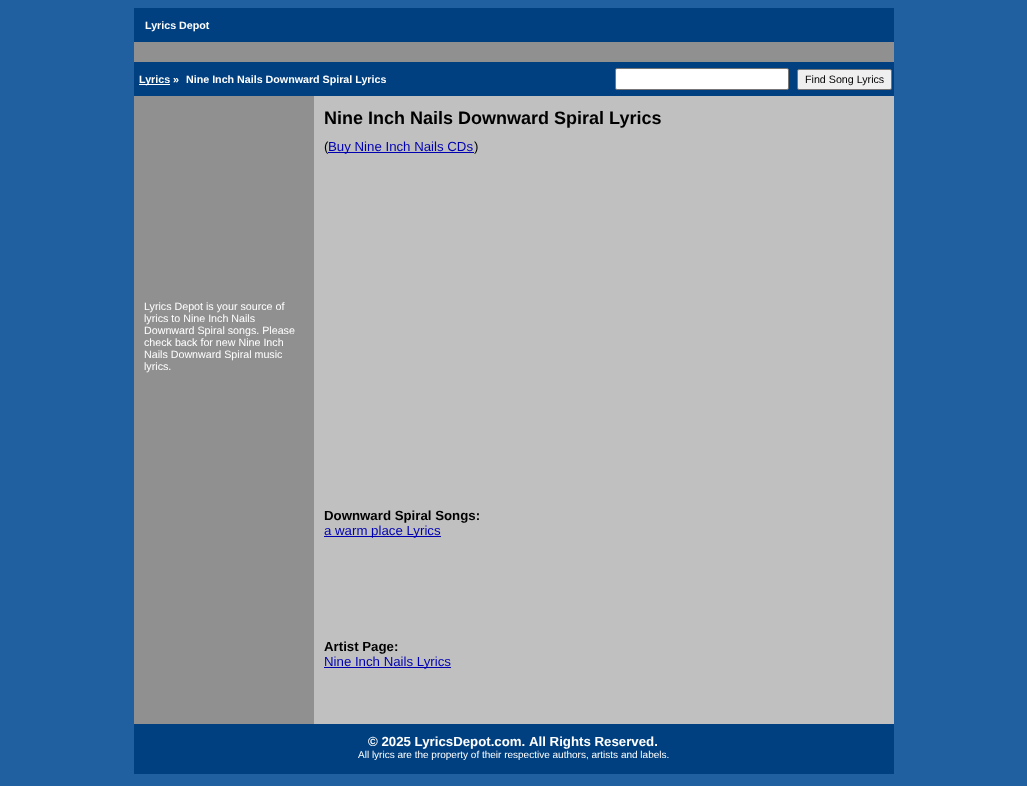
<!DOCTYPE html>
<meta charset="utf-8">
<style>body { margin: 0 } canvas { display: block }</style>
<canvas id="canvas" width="1027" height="786"></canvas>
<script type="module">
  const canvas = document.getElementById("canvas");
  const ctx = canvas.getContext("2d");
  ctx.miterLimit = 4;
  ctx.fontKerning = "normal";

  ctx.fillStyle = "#2060a0";
  ctx.fillRect(0, 0, 1027, 786);
  ctx.fillStyle = "#909090";
  ctx.fillRect(134, 42, 760, 20);
  ctx.fillStyle = "#004080";
  ctx.fillRect(134, 8, 760, 34);
  ctx.font = "bold 10.7px Liberation Sans";
  ctx.fillStyle = "#ffffff";
  ctx.fillText("Lyrics Depot", 145, 29);
  ctx.fillStyle = "#004080";
  ctx.fillRect(134, 62, 760, 34);
  ctx.fillStyle = "#ffffff";
  ctx.fillRect(139, 84, 31, 1);
  ctx.fillText("Lyrics »", 139, 83);
  ctx.fillText("Nine Inch Nails Downward Spiral Lyrics", 186, 83);
  ctx.beginPath();
  ctx.roundRect(615.5, 68.5, 173, 21, 1.5);
  ctx.fill();
  ctx.strokeStyle = "#767676";
  ctx.stroke();
  ctx.fillStyle = "#efefef";
  ctx.beginPath();
  ctx.roundRect(797.5, 69.5, 94, 20, 1.5);
  ctx.fill();
  ctx.stroke();
  ctx.font = "10.7px Liberation Sans";
  ctx.fillStyle = "#000000";
  ctx.fillText("Find Song Lyrics", 805, 83);
  ctx.fillStyle = "#c0c0c0";
  ctx.fillRect(314, 96, 580, 628);
  ctx.fillStyle = "#909090";
  ctx.fillRect(134, 96, 180, 628);
  ctx.fillStyle = "#ffffff";
  ctx.fillText("Lyrics Depot is your source of", 144, 310);
  ctx.fillText("lyrics to Nine Inch Nails", 144, 322);
  ctx.fillText("Downward Spiral songs. Please", 144, 334);
  ctx.fillText("check back for new Nine Inch", 144, 346);
  ctx.fillText("Nails Downward Spiral music", 144, 358);
  ctx.fillText("lyrics.", 144, 370);
  ctx.font = "bold 18px Liberation Sans";
  ctx.fillStyle = "#000000";
  ctx.fillText("Nine Inch Nails Downward Spiral Lyrics", 324, 124);
  ctx.font = "13.25px Liberation Sans";
  ctx.fillText("(", 324, 151);
  ctx.fillStyle = "#0000b0";
  ctx.fillRect(328, 152, 146, 1);
  ctx.fillText("Buy Nine Inch Nails CDs", 328, 151);
  ctx.fillStyle = "#000000";
  ctx.fillText(")", 474, 151);
  ctx.font = "bold 13.25px Liberation Sans";
  ctx.fillText("Downward Spiral Songs:", 324, 520);
  ctx.fillStyle = "#0000b0";
  ctx.fillRect(324, 536, 117, 1);
  ctx.font = "13.25px Liberation Sans";
  ctx.fillText("a warm place Lyrics", 324, 535);
  ctx.font = "bold 13.25px Liberation Sans";
  ctx.fillStyle = "#000000";
  ctx.fillText("Artist Page:", 324, 651);
  ctx.fillStyle = "#0000b0";
  ctx.fillRect(324, 667, 127, 1);
  ctx.font = "13.25px Liberation Sans";
  ctx.fillText("Nine Inch Nails Lyrics", 324, 666);
  ctx.fillStyle = "#004080";
  ctx.fillRect(134, 724, 760, 50);
  ctx.font = "bold 13.25px Liberation Sans";
  ctx.fillStyle = "#ffffff";
  ctx.fillText("© 2025 LyricsDepot.com.", 368, 746);
  ctx.fillText("All Rights Reserved.", 529, 746);
  ctx.font = "10px Liberation Sans";
  ctx.fillText("All lyrics are the property of their respective authors, artists and labels.", 358, 758);
</script>
